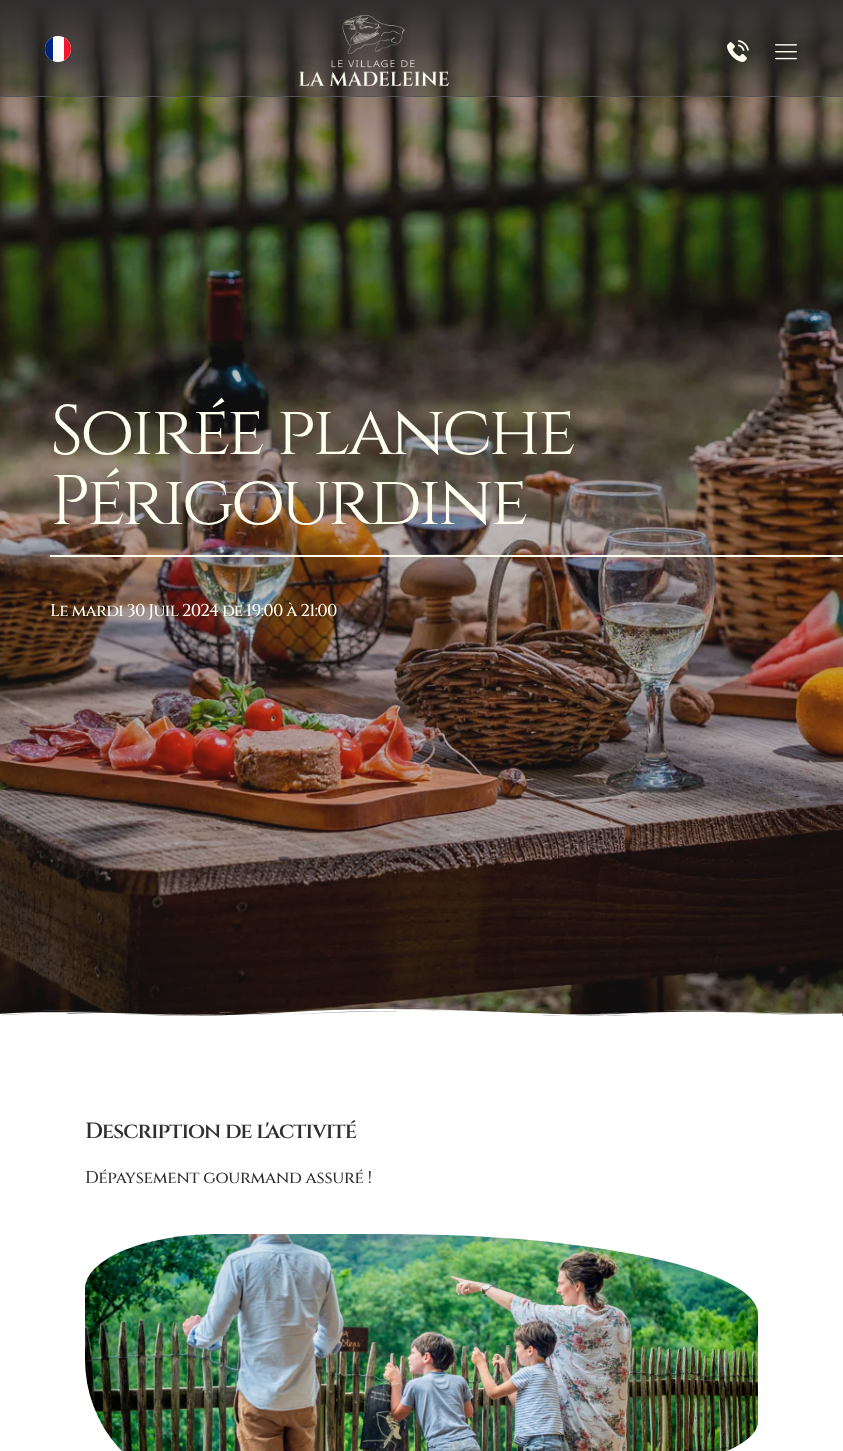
<!DOCTYPE html>
<meta charset="utf-8">
<style>body { margin: 0 } canvas { display: block }</style>
<canvas id="canvas" width="843" height="1451"></canvas>
<script type="module">
  const canvas = document.getElementById("canvas");
  const ctx = canvas.getContext("2d");
  ctx.miterLimit = 4;
  ctx.fontKerning = "normal";
  async function loadImage(src) {
    const img = new Image();
    img.src = src;
    await img.decode();
    return img;
  }

  ctx.fillStyle = "#ffffff";
  ctx.fillRect(0, 0, 843, 1451);
  ctx.drawImage(await loadImage("img4.png"), 0, 0, 843, 1016);
  ctx.fillStyle = "#565454";
  ctx.fillRect(0, 96, 843, 1);
  ctx.fillStyle = "#ffffff";
  ctx.beginPath();
  ctx.arc(58, 49, 13, 0, Math.PI * 2);
  ctx.fill();
  ctx.save();
  ctx.beginPath();
  ctx.roundRect(45, 36, 26, 26, 13);
  ctx.clip();
  ctx.fillStyle = "#00267f";
  ctx.beginPath();
  ctx.roundRect(45, 36, 8, 26, [2, 0, 0, 2]);
  ctx.fill();
  ctx.fillStyle = "#f31830";
  ctx.fillRect(64, 36, 7, 26);
  ctx.restore();
  ctx.drawImage(await loadImage("img1.png"), 299, 15, 151, 72);
  ctx.drawImage(await loadImage("img2.png"), 727, 40, 22, 22);
  ctx.drawImage(await loadImage("img3.png"), 775, 44, 22, 16);
  ctx.letterSpacing = "-2.9px";
  ctx.font = "70px Cinzel";
  ctx.fillStyle = "#fffff0";
  ctx.fillText("Soirée planche", 50, 454);
  ctx.fillText("Périgourdine", 50, 524);
  ctx.fillRect(50, 555, 793, 2);
  ctx.letterSpacing = "-0.7px";
  ctx.font = "500 17px Cinzel";
  ctx.fillText("Le mardi 30 Juil 2024 de 19:00 à 21:00", 50, 616);
  ctx.drawImage(await loadImage("img5.png"), 0, 1007, 843, 9);
  ctx.letterSpacing = "-0.9px";
  ctx.font = "600 22px Cinzel";
  ctx.fillStyle = "#302e2e";
  ctx.fillText("Description de l'activité", 85, 1138);
  ctx.letterSpacing = "-0.25px";
  ctx.font = "500 17px Cinzel";
  ctx.fillText("Dépaysement gourmand assuré !", 85, 1183);
  ctx.drawImage(await loadImage("img6.png"), 85, 1234, 673, 217);
</script>
